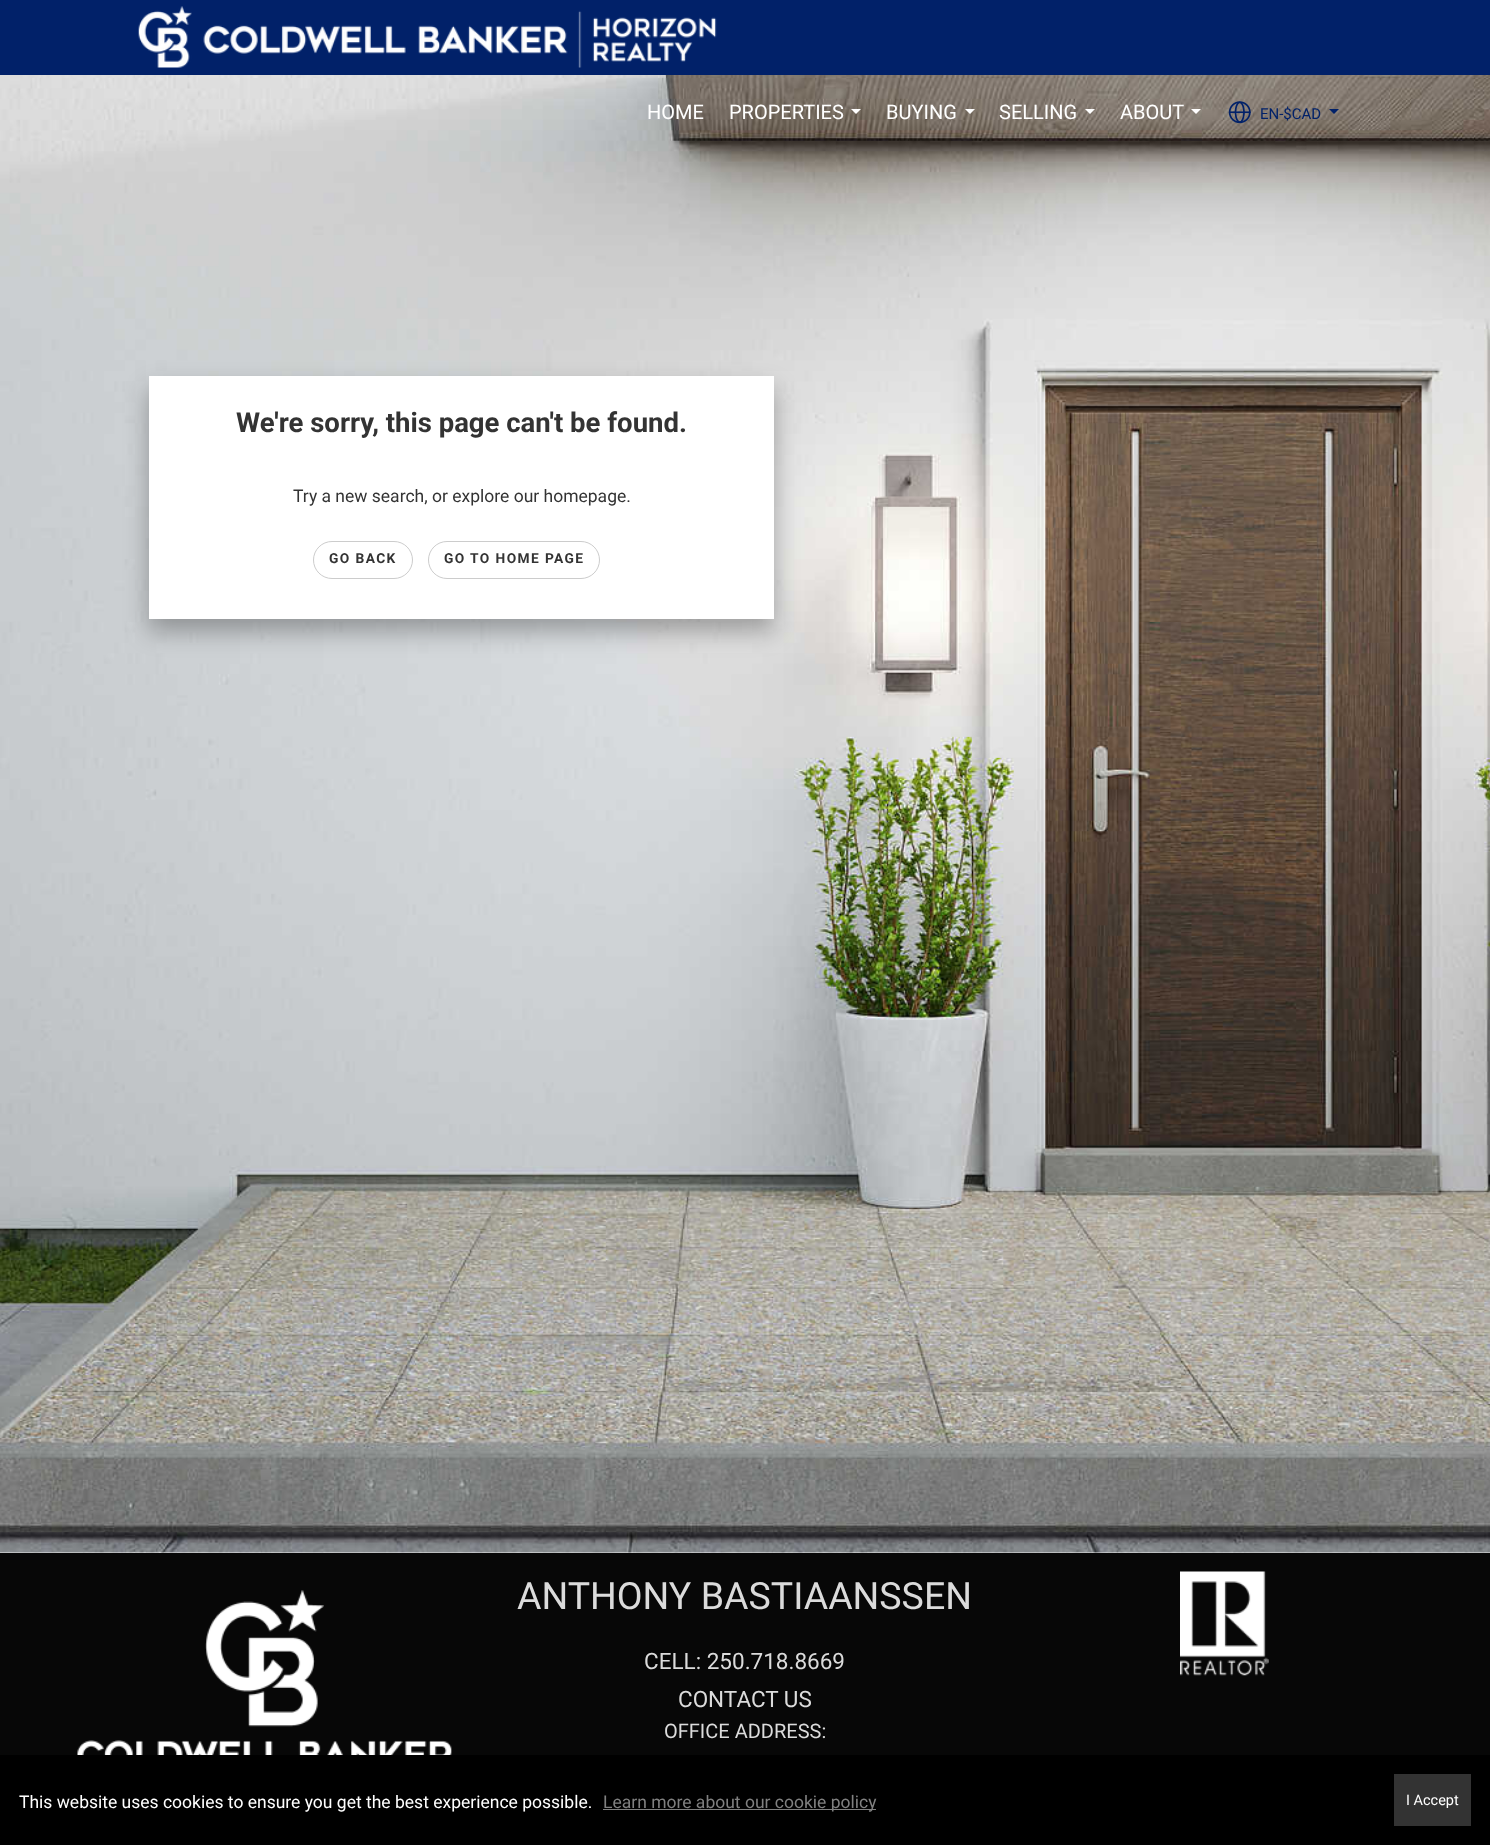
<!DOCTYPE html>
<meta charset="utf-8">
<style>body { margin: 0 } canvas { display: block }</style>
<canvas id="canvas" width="1490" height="1845"></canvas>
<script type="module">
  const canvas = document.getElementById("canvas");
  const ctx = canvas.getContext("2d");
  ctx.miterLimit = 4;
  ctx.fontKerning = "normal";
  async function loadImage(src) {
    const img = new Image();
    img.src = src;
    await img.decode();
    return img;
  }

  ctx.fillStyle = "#ffffff";
  ctx.fillRect(0, 0, 1490, 1845);
  ctx.fillStyle = "#012169";
  ctx.fillRect(0, 0, 1490, 75);
  ctx.drawImage(await loadImage("img1.png"), 138, 6, 579, 62);
  ctx.drawImage(await loadImage("img3.png"), 0, 75, 1490, 1478);
  ctx.font = "20px Roboto";
  ctx.fillStyle = "#ffffff";
  ctx.fillText("HOME", 647, 119);
  ctx.fillText("PROPERTIES", 729, 119);
  ctx.beginPath();
  ctx.moveTo(851, 109);
  ctx.lineTo(861, 109);
  ctx.lineTo(856, 114);
  ctx.closePath();
  ctx.fill();
  ctx.fillText("BUYING", 886, 119);
  ctx.beginPath();
  ctx.moveTo(965, 109);
  ctx.lineTo(975, 109);
  ctx.lineTo(970, 114);
  ctx.closePath();
  ctx.fill();
  ctx.fillText("SELLING", 999, 119);
  ctx.beginPath();
  ctx.moveTo(1085, 109);
  ctx.lineTo(1095, 109);
  ctx.lineTo(1090, 114);
  ctx.closePath();
  ctx.fill();
  ctx.fillText("ABOUT", 1120, 119);
  ctx.beginPath();
  ctx.moveTo(1191, 109);
  ctx.lineTo(1201, 109);
  ctx.lineTo(1196, 114);
  ctx.closePath();
  ctx.fill();
  ctx.drawImage(await loadImage("img2.png"), 1228, 101, 23, 23);
  ctx.font = "15px Roboto";
  ctx.fillStyle = "#012169";
  ctx.fillText("EN-$CAD", 1260, 119);
  ctx.beginPath();
  ctx.moveTo(1329, 109);
  ctx.lineTo(1339, 109);
  ctx.lineTo(1334, 114);
  ctx.closePath();
  ctx.fill();
  ctx.fillStyle = "rgba(0, 0, 0, 0.3)";
  ctx.filter = "blur(12.5px)";
  ctx.beginPath();
  ctx.rect(149, 389, 625, 242);
  ctx.fill();
  ctx.filter = "none";
  ctx.fillStyle = "#ffffff";
  ctx.fillRect(149, 376, 625, 243);
  ctx.font = "bold 27.5px Roboto";
  ctx.fillStyle = "#333333";
  ctx.fillText("We're sorry, this page can't be found.", 236, 432);
  ctx.font = "17.5px Roboto";
  ctx.fillText("Try a new search, or explore our homepage.", 293, 502);
  ctx.beginPath();
  ctx.roundRect(313.5, 541.5, 99, 37, 18.5);
  ctx.strokeStyle = "#cccccc";
  ctx.stroke();
  ctx.letterSpacing = "1.4px";
  ctx.font = "bold 13.75px Roboto";
  ctx.fillText("GO BACK", 329, 563);
  ctx.beginPath();
  ctx.roundRect(428.5, 541.5, 171, 37, 18.5);
  ctx.stroke();
  ctx.fillText("GO TO HOME PAGE", 444, 563);
  ctx.fillStyle = "#070707";
  ctx.fillRect(0, 1553, 1490, 202);
  ctx.drawImage(await loadImage("img4.png"), 77, 1590, 375, 165);
  ctx.letterSpacing = "0px";
  ctx.font = "37.5px Roboto";
  ctx.fillStyle = "#dbdbdb";
  ctx.fillText("ANTHONY BASTIAANSSEN", 517, 1609);
  ctx.font = "22.5px Roboto";
  ctx.fillText("CELL: 250.718.8669", 644, 1669);
  ctx.fillText("CONTACT US", 678, 1707);
  ctx.font = "20px Roboto";
  ctx.fillText("OFFICE ADDRESS:", 664, 1738);
  ctx.drawImage(await loadImage("img5.png"), 1180, 1571, 89, 105);
  ctx.fillStyle = "#000000";
  ctx.fillRect(0, 1755, 1490, 90);
  ctx.font = "17.5px Roboto";
  ctx.fillStyle = "#ffffff";
  ctx.fillText("This website uses cookies to ensure you get the best experience possible.", 19, 1808);
  ctx.fillStyle = "#808080";
  ctx.fillRect(603, 1809, 273, 1);
  ctx.fillText("Learn more about our cookie policy", 603, 1808);
  ctx.fillStyle = "#333333";
  ctx.fillRect(1394, 1774, 77, 52);
  ctx.font = "14.5px Roboto";
  ctx.fillStyle = "#ffffff";
  ctx.fillText("I Accept", 1406, 1805);
</script>
